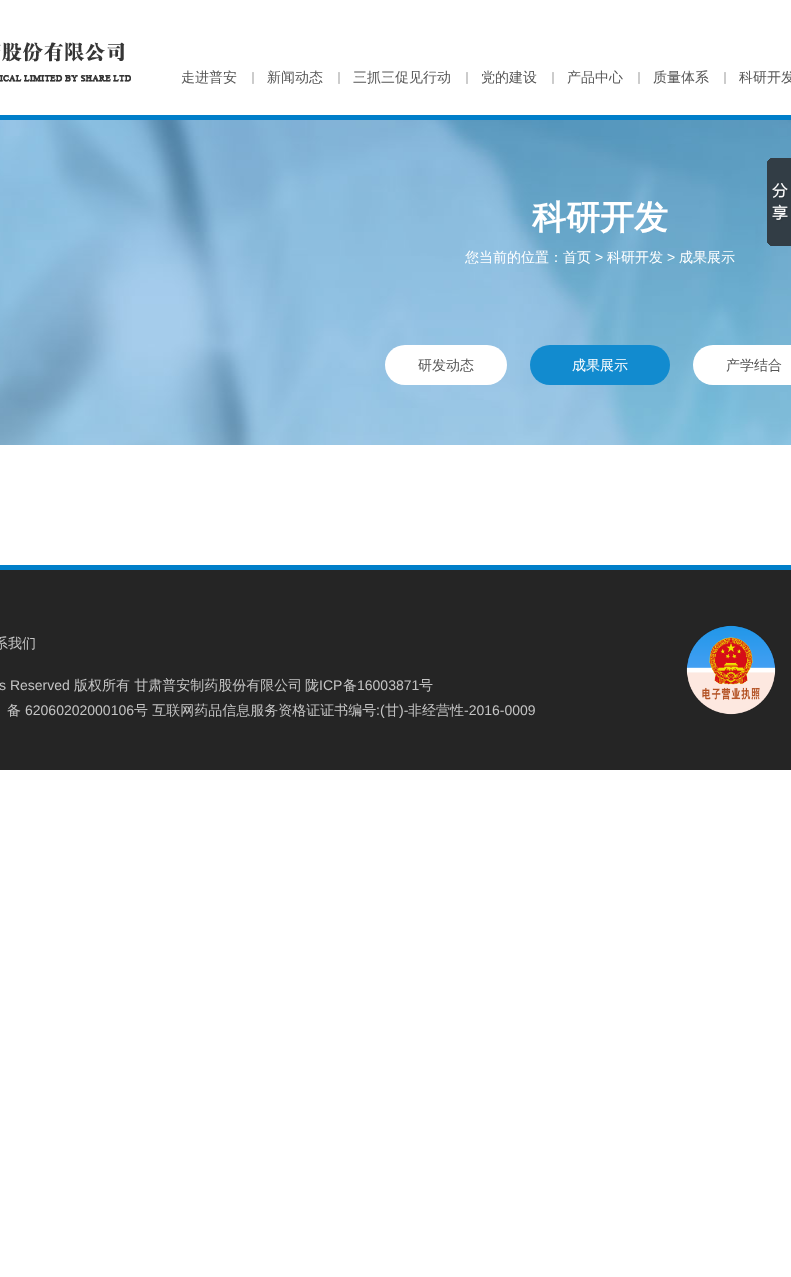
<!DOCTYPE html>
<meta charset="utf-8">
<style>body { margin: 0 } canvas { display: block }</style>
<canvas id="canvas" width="791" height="1277"></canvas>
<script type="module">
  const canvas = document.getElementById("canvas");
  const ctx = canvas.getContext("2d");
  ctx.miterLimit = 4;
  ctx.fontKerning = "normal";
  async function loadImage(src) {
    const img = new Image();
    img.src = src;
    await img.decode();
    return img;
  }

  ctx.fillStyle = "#ffffff";
  ctx.fillRect(0, 0, 791, 1277);
  ctx.fillStyle = "#007fca";
  ctx.fillRect(0, 115, 791, 5);
  ctx.drawImage(await loadImage("img1.png"), 0, 42, 131, 40);
  ctx.font = "500 14px WenQuanYi Zen Hei";
  ctx.fillStyle = "#565656";
  ctx.fillText("走进普安", 181, 82);
  ctx.drawImage(await loadImage("img2.png"), 252, 72, 2, 12);
  ctx.fillText("新闻动态", 267, 82);
  ctx.drawImage(await loadImage("img2.png"), 338, 72, 2, 12);
  ctx.fillText("三抓三促见行动", 353, 82);
  ctx.drawImage(await loadImage("img2.png"), 466, 72, 2, 12);
  ctx.fillText("党的建设", 481, 82);
  ctx.drawImage(await loadImage("img2.png"), 552, 72, 2, 12);
  ctx.fillText("产品中心", 567, 82);
  ctx.drawImage(await loadImage("img2.png"), 638, 72, 2, 12);
  ctx.fillText("质量体系", 653, 82);
  ctx.drawImage(await loadImage("img2.png"), 724, 72, 2, 12);
  ctx.fillText("科研开发", 739, 82);
  ctx.drawImage(await loadImage("img4.png"), 0, 120, 791, 325);
  ctx.drawImage(await loadImage("img3.png"), 767, 158, 24, 88);
  ctx.font = "bold 34px WenQuanYi Zen Hei";
  ctx.fillStyle = "#ffffff";
  ctx.fillText("科研开发", 532, 229);
  ctx.font = "500 14px WenQuanYi Zen Hei";
  ctx.fillText("您当前的位置：首页", 465, 262);
  ctx.font = "14px Liberation Sans";
  ctx.fillText(">", 595, 262);
  ctx.font = "500 14px WenQuanYi Zen Hei";
  ctx.fillText("科研开发", 607, 262);
  ctx.font = "14px Liberation Sans";
  ctx.fillText(">", 667, 262);
  ctx.font = "500 14px WenQuanYi Zen Hei";
  ctx.fillText("成果展示", 679, 262);
  ctx.beginPath();
  ctx.roundRect(385, 345, 122, 40, 20);
  ctx.fill();
  ctx.fillStyle = "#565656";
  ctx.fillText("研发动态", 418, 370);
  ctx.fillStyle = "#128bcf";
  ctx.beginPath();
  ctx.roundRect(530, 345, 140, 40, 20);
  ctx.fill();
  ctx.fillStyle = "#ffffff";
  ctx.fillText("成果展示", 572, 370);
  ctx.beginPath();
  ctx.roundRect(693, 345, 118, 40, 20);
  ctx.fill();
  ctx.fillStyle = "#565656";
  ctx.fillText("产学结合", 726, 370);
  ctx.fillStyle = "#252525";
  ctx.fillRect(0, 570, 791, 200);
  ctx.fillStyle = "#007fc9";
  ctx.fillRect(0, 565, 791, 5);
  ctx.fillStyle = "#c4c4c4";
  ctx.fillText("系我们", -6, 648);
  ctx.font = "14px Liberation Sans";
  ctx.fillText("s Reserved", -1, 690);
  ctx.font = "500 14px WenQuanYi Zen Hei";
  ctx.fillText("版权所有 甘肃普安制药股份有限公司", 74, 690);
  ctx.fillText("陇", 305, 690);
  ctx.font = "14px Liberation Sans";
  ctx.fillText("ICP", 319, 690);
  ctx.font = "500 14px WenQuanYi Zen Hei";
  ctx.fillText("备", 343, 690);
  ctx.font = "14px Liberation Sans";
  ctx.fillText("16003871", 357, 690);
  ctx.font = "500 14px WenQuanYi Zen Hei";
  ctx.fillText("号", 419, 690);
  ctx.fillText("备", 7, 715);
  ctx.font = "14px Liberation Sans";
  ctx.fillText("62060202000106", 25, 715);
  ctx.font = "500 14px WenQuanYi Zen Hei";
  ctx.fillText("号 互联网药品信息服务资格证证书编号", 134, 715);
  ctx.font = "14px Liberation Sans";
  ctx.fillText(":(", 376, 715);
  ctx.font = "500 14px WenQuanYi Zen Hei";
  ctx.fillText("甘", 385, 715);
  ctx.font = "14px Liberation Sans";
  ctx.fillText(")-", 399, 715);
  ctx.font = "500 14px WenQuanYi Zen Hei";
  ctx.fillText("非经营性", 408, 715);
  ctx.font = "14px Liberation Sans";
  ctx.fillText("-2016-0009", 464, 715);
  ctx.drawImage(await loadImage("img5.png"), 686, 625, 90, 90);
</script>
